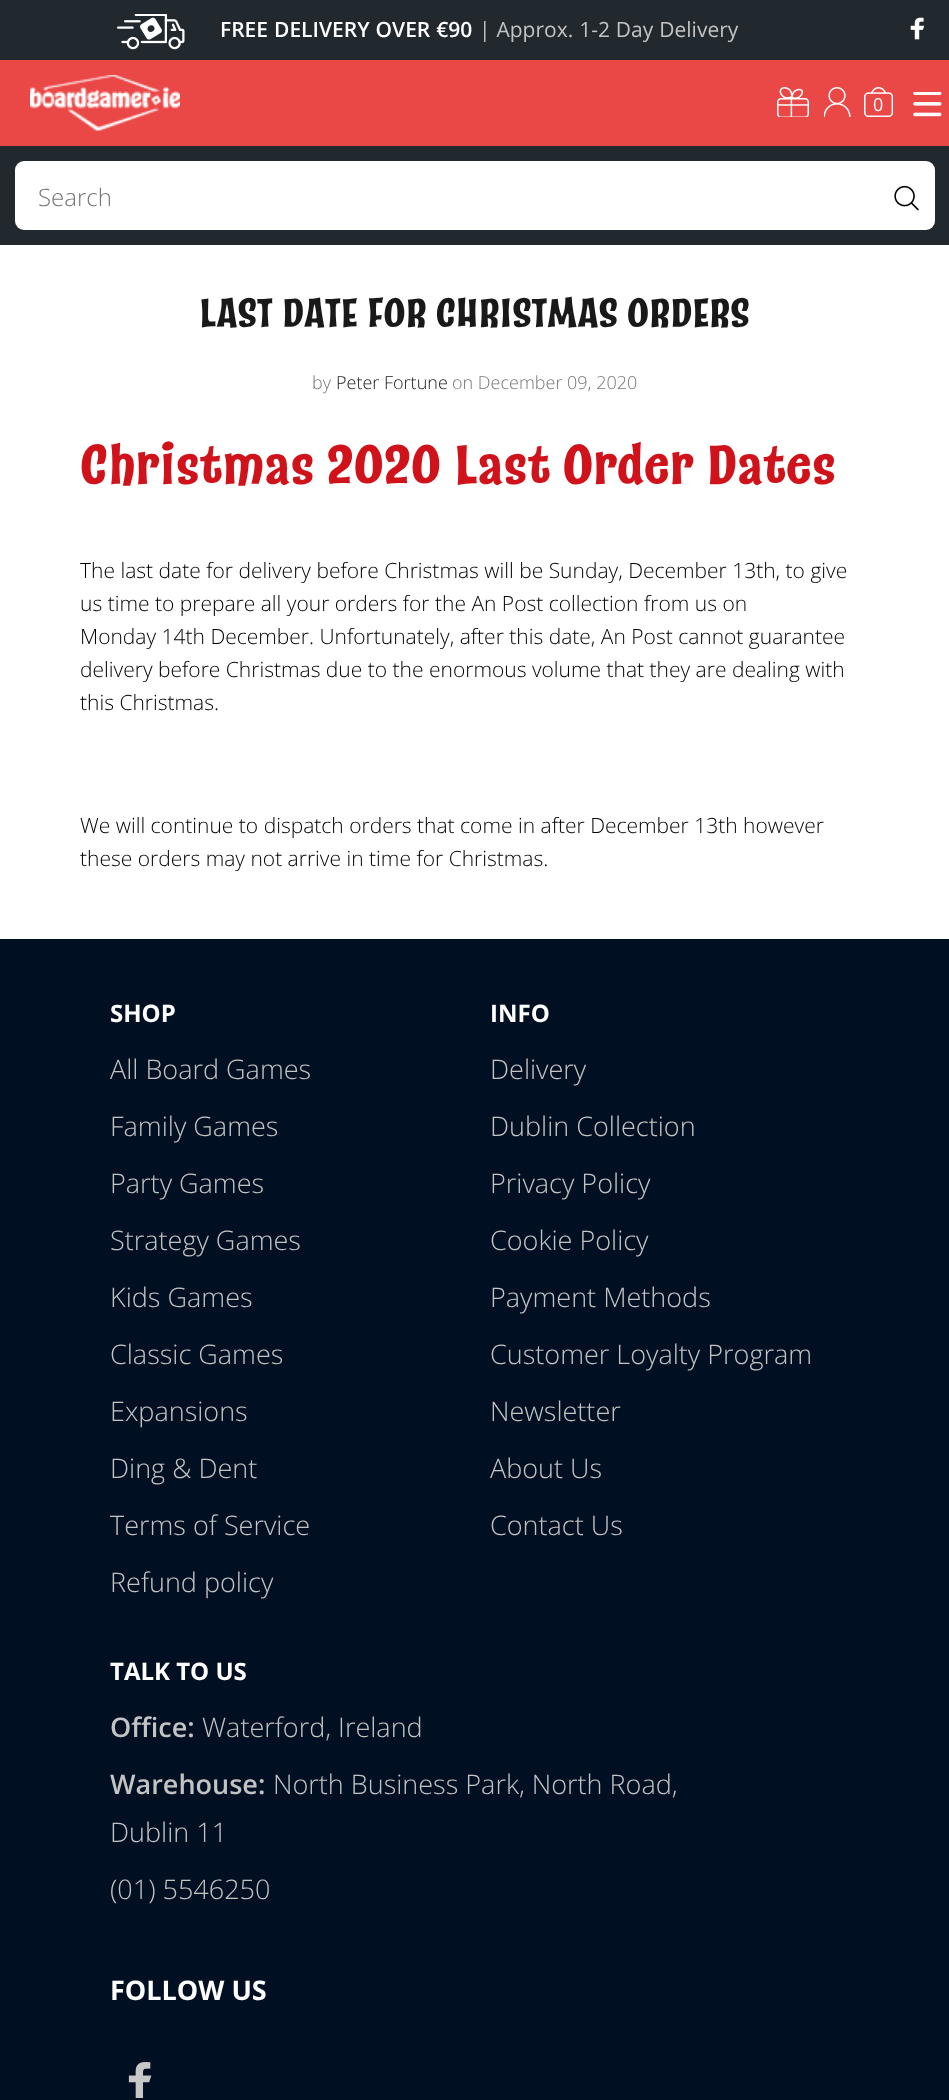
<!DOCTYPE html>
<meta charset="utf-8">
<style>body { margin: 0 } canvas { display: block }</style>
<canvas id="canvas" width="949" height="2100"></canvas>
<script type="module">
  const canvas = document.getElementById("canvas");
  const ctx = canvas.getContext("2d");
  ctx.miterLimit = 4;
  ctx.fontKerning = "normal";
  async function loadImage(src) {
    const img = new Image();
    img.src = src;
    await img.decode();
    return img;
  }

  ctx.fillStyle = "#ffffff";
  ctx.fillRect(0, 0, 949, 2100);
  ctx.fillStyle = "#ea4747";
  ctx.fillRect(0, 60, 949, 86);
  ctx.fillStyle = "#21282e";
  ctx.fillRect(0, 0, 949, 60);
  ctx.drawImage(await loadImage("img1.png"), 117, 14, 68, 36);
  ctx.wordSpacing = "0.5px";
  ctx.font = "600 21px Open Sans";
  ctx.fillStyle = "#ffffff";
  ctx.fillText("FREE DELIVERY OVER €90", 220, 37);
  ctx.font = "21px Open Sans";
  ctx.fillStyle = "#c3c3c3";
  ctx.fillText("| Approx. 1-2 Day Delivery", 479, 37);
  ctx.drawImage(await loadImage("img2.png"), 910, 17, 15, 23);
  ctx.drawImage(await loadImage("img3.png"), 30, 75, 150, 56);
  ctx.drawImage(await loadImage("img4.png"), 777, 87, 32, 30);
  ctx.drawImage(await loadImage("img5.png"), 824, 87, 27, 30);
  ctx.drawImage(await loadImage("img6.png"), 864, 87, 29, 30);
  ctx.wordSpacing = "0px";
  ctx.font = "18px Open Sans";
  ctx.fillStyle = "#ffffff";
  ctx.fillText("0", 873, 111);
  ctx.drawImage(await loadImage("img7.png"), 913, 92, 29, 25);
  ctx.fillStyle = "#21282e";
  ctx.fillRect(0, 146, 949, 99);
  ctx.fillStyle = "#ffffff";
  ctx.beginPath();
  ctx.roundRect(15, 161, 920, 69, 9);
  ctx.fill();
  ctx.font = "300 24px Open Sans";
  ctx.fillStyle = "#777777";
  ctx.fillText("Search", 38, 206);
  ctx.drawImage(await loadImage("img8.png"), 894, 185, 25, 26);
  ctx.font = "bold 39px 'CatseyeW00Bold'";
  ctx.fillStyle = "#191919";
  ctx.fillText("LAST DATE FOR CHRISTMAS ORDERS", 199, 326);
  ctx.font = "300 18px Open Sans";
  ctx.fillStyle = "#777777";
  ctx.fillText("by", 312, 389);
  ctx.fillStyle = "#191919";
  ctx.fillText("Peter Fortune", 336, 389);
  ctx.fillStyle = "#777777";
  ctx.fillText("on December 09, 2020", 452, 389);
  ctx.font = "bold 54px 'CatseyeW00Bold'";
  ctx.fillStyle = "#d0121a";
  ctx.fillText("Christmas 2020 Last Order Dates", 80, 483);
  ctx.font = "300 21px Open Sans";
  ctx.fillStyle = "#000000";
  ctx.fillText("The last date for delivery before Christmas will be Sunday, December 13th, to give", 80, 578);
  ctx.fillText("us time to prepare all your orders for the An Post collection from us on", 80, 611);
  ctx.fillText("Monday 14th December. Unfortunately, after this date, An Post cannot guarantee", 80, 644);
  ctx.fillText("delivery before Christmas due to the enormous volume that they are dealing with", 80, 677);
  ctx.fillText("this Christmas.", 80, 710);
  ctx.fillText("We will continue to dispatch orders that come in after December 13th however", 80, 833);
  ctx.fillText("these orders may not arrive in time for Christmas.", 80, 866);
  ctx.fillStyle = "#010f22";
  ctx.fillRect(0, 939, 949, 1161);
  ctx.font = "bold 24px Open Sans";
  ctx.fillStyle = "#ffffff";
  ctx.fillText("SHOP", 110, 1022);
  ctx.font = "300 27px Open Sans";
  ctx.fillStyle = "#c3c3c3";
  ctx.fillText("All Board Games", 110, 1079);
  ctx.fillText("Family Games", 110, 1136);
  ctx.fillText("Party Games", 110, 1193);
  ctx.fillText("Strategy Games", 110, 1250);
  ctx.fillText("Kids Games", 110, 1307);
  ctx.fillText("Classic Games", 110, 1364);
  ctx.fillText("Expansions", 110, 1421);
  ctx.fillText("Ding & Dent", 110, 1478);
  ctx.fillText("Terms of Service", 110, 1535);
  ctx.fillText("Refund policy", 110, 1592);
  ctx.font = "bold 24px Open Sans";
  ctx.fillStyle = "#ffffff";
  ctx.fillText("INFO", 490, 1022);
  ctx.font = "300 27px Open Sans";
  ctx.fillStyle = "#c3c3c3";
  ctx.fillText("Delivery", 490, 1079);
  ctx.fillText("Dublin Collection", 490, 1136);
  ctx.fillText("Privacy Policy", 490, 1193);
  ctx.fillText("Cookie Policy", 490, 1250);
  ctx.fillText("Payment Methods", 490, 1307);
  ctx.fillText("Customer Loyalty Program", 490, 1364);
  ctx.fillText("Newsletter", 490, 1421);
  ctx.fillText("About Us", 490, 1478);
  ctx.fillText("Contact Us", 490, 1535);
  ctx.font = "bold 24px Open Sans";
  ctx.fillStyle = "#ffffff";
  ctx.fillText("TALK TO US", 110, 1680);
  ctx.font = "600 27px Open Sans";
  ctx.fillStyle = "#c3c3c3";
  ctx.fillText("Office:", 110, 1737);
  ctx.font = "300 27px Open Sans";
  ctx.fillText("Waterford, Ireland", 202, 1737);
  ctx.font = "600 27px Open Sans";
  ctx.fillText("Warehouse:", 110, 1794);
  ctx.font = "300 27px Open Sans";
  ctx.fillText("North Business Park, North Road,", 273, 1794);
  ctx.fillText("Dublin 11", 110, 1842);
  ctx.fillText("(01) 5546250", 110, 1899);
  ctx.font = "bold 27px Open Sans";
  ctx.fillStyle = "#ffffff";
  ctx.fillText("FOLLOW US", 110, 2000);
  ctx.drawImage(await loadImage("img9.png"), 128, 2062, 24, 36);
</script>
